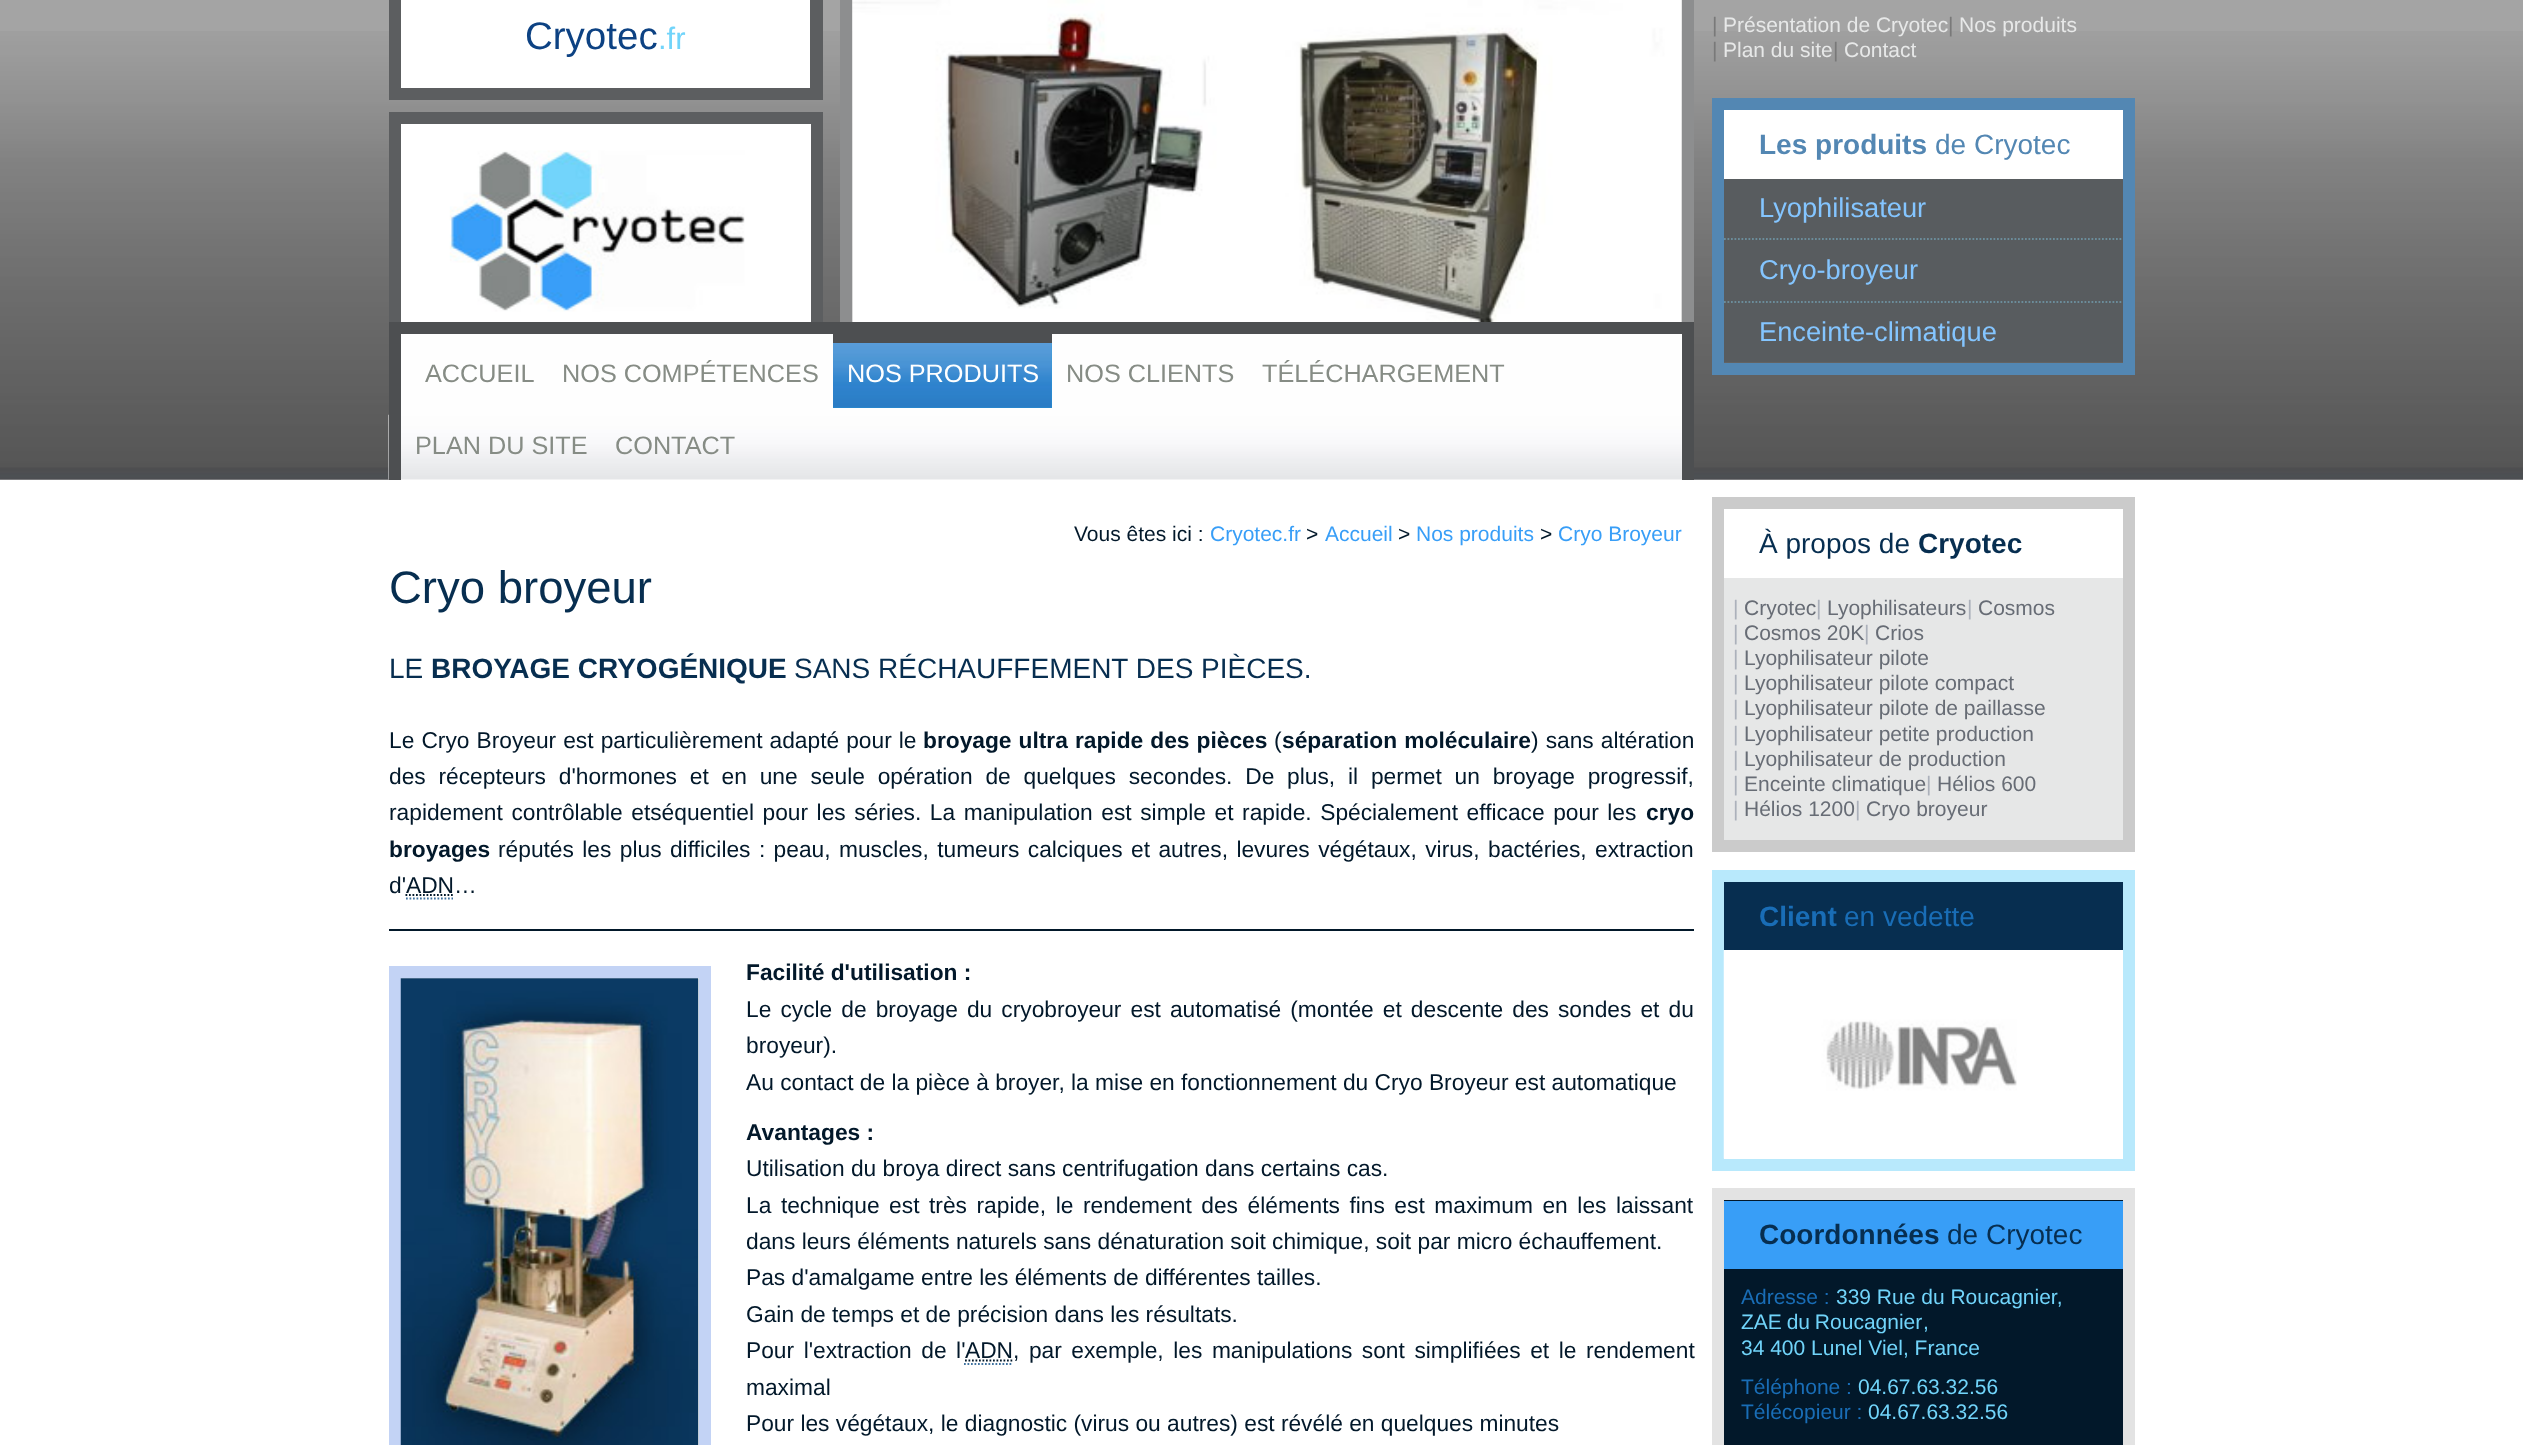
<!DOCTYPE html>
<meta charset="utf-8">
<style>body { margin: 0 } canvas { display: block }</style>
<canvas id="canvas" width="2523" height="1445"></canvas>
<script type="module">
  const canvas = document.getElementById("canvas");
  const ctx = canvas.getContext("2d");
  ctx.miterLimit = 4;
  ctx.fontKerning = "normal";
  async function loadImage(src) {
    const img = new Image();
    img.src = src;
    await img.decode();
    return img;
  }

  ctx.fillStyle = "#a4a4a4";
  ctx.fillRect(0, 0, 2523, 1445);
  ctx.drawImage(await loadImage("img1.png"), 0, 31, 2523, 449);
  ctx.fillStyle = "#ffffff";
  ctx.fillRect(401, 0, 409, 88);
  ctx.fillStyle = "#5c5e60";
  ctx.fillRect(810, 0, 13, 88);
  ctx.fillRect(401, 88, 422, 12);
  ctx.fillRect(389, 0, 12, 100);
  ctx.font = "38.5px Liberation Sans";
  ctx.fillStyle = "#0d4283";
  ctx.fillText("Cryotec", 525, 49);
  ctx.font = "31px Liberation Sans";
  ctx.fillStyle = "#71d4fa";
  ctx.fillText(".fr", 658, 49);
  ctx.fillStyle = "#ffffff";
  ctx.fillRect(401, 124, 410, 198);
  ctx.strokeStyle = "#5c5e60";
  ctx.lineWidth = 12;
  ctx.strokeRect(395, 118, 422, 226);
  ctx.drawImage(await loadImage("img2.png"), 449, 150, 296, 162);
  ctx.fillStyle = "#8d8e8f";
  ctx.fillRect(1682, 0, 12, 322);
  ctx.fillRect(840, 0, 12, 322);
  ctx.drawImage(await loadImage("img3.png"), 852, 0, 830, 322);
  ctx.fillStyle = "#fefefe";
  ctx.fillRect(401, 334, 1281, 146);
  ctx.drawImage(await loadImage("img4.png"), 388, 414, 1294, 66);
  ctx.fillStyle = "#4d4f51";
  ctx.fillRect(401, 322, 1281, 12);
  ctx.fillRect(1682, 322, 12, 158);
  ctx.fillRect(389, 322, 12, 158);
  ctx.font = "25.25px Liberation Sans";
  ctx.fillStyle = "#868c85";
  ctx.fillText("ACCUEIL", 425, 382);
  ctx.fillText("NOS COMPÉTENCES", 562, 382);
  ctx.fillStyle = "#26a0df";
  ctx.fillRect(833, 343, 219, 65);
  ctx.drawImage(await loadImage("img5.png"), 833, 343, 219, 65);
  ctx.fillStyle = "#4d4f51";
  ctx.fillRect(833, 334, 219, 9);
  ctx.fillStyle = "#ffffff";
  ctx.fillText("NOS PRODUITS", 847, 382);
  ctx.fillStyle = "#868c85";
  ctx.fillText("NOS CLIENTS", 1066, 382);
  ctx.fillText("TÉLÉCHARGEMENT", 1262, 382);
  ctx.fillText("PLAN DU SITE", 415, 454);
  ctx.fillText("CONTACT", 615, 454);
  ctx.font = "21px Liberation Sans";
  ctx.fillStyle = "#797979";
  ctx.fillText("|", 1712, 32);
  ctx.fillStyle = "#e7e8e8";
  ctx.fillText("Présentation de Cryotec", 1723, 32);
  ctx.fillStyle = "#797979";
  ctx.fillText("|", 1948, 32);
  ctx.fillStyle = "#e7e8e8";
  ctx.fillText("Nos produits", 1959, 32);
  ctx.fillStyle = "#797979";
  ctx.fillText("|", 1712, 57);
  ctx.fillStyle = "#e7e8e8";
  ctx.fillText("Plan du site", 1723, 57);
  ctx.fillStyle = "#797979";
  ctx.fillText("|", 1833, 57);
  ctx.fillStyle = "#e7e8e8";
  ctx.fillText("Contact", 1844, 57);
  ctx.strokeStyle = "#5387b3";
  ctx.strokeRect(1718, 104, 411, 265);
  ctx.fillStyle = "#ffffff";
  ctx.fillRect(1724, 110, 399, 69);
  ctx.font = "bold 28px Liberation Sans";
  ctx.fillStyle = "#5387b3";
  ctx.fillText("Les produits", 1759, 154);
  ctx.font = "28px Liberation Sans";
  ctx.fillText("de Cryotec", 1935, 154);
  ctx.fillStyle = "#585c5f";
  ctx.fillRect(1724, 179, 399, 183);
  ctx.beginPath();
  ctx.moveTo(1724, 239);
  ctx.lineTo(2123, 239);
  ctx.strokeStyle = "#6b8c9a";
  ctx.lineWidth = 1.8;
  ctx.setLineDash([1.75, 1.75]);
  ctx.stroke();
  ctx.font = "27.25px Liberation Sans";
  ctx.fillStyle = "#84c5ff";
  ctx.fillText("Lyophilisateur", 1759, 217);
  ctx.beginPath();
  ctx.moveTo(1724, 302);
  ctx.lineTo(2123, 302);
  ctx.stroke();
  ctx.fillText("Cryo-broyeur", 1759, 279);
  ctx.fillText("Enceinte-climatique", 1759, 341);
  ctx.fillStyle = "#ffffff";
  ctx.fillRect(0, 480, 2523, 965);
  ctx.font = "21px Liberation Sans";
  ctx.fillStyle = "#02182a";
  ctx.fillText("Vous êtes ici :", 1074, 541);
  ctx.fillStyle = "#389ef7";
  ctx.fillText("Cryotec.fr", 1210, 541);
  ctx.fillStyle = "#02182a";
  ctx.fillText(">", 1306, 541);
  ctx.fillStyle = "#389ef7";
  ctx.fillText("Accueil", 1325, 541);
  ctx.fillStyle = "#02182a";
  ctx.fillText(">", 1398, 541);
  ctx.fillStyle = "#389ef7";
  ctx.fillText("Nos produits", 1416, 541);
  ctx.fillStyle = "#02182a";
  ctx.fillText(">", 1540, 541);
  ctx.fillStyle = "#389ef7";
  ctx.fillText("Cryo Broyeur", 1558, 541);
  ctx.font = "45.5px Liberation Sans";
  ctx.fillStyle = "#072e50";
  ctx.fillText("Cryo broyeur", 389, 603);
  ctx.font = "28px Liberation Sans";
  ctx.fillText("LE", 389, 678);
  ctx.font = "bold 28px Liberation Sans";
  ctx.fillText("BROYAGE CRYOGÉNIQUE", 431, 678);
  ctx.font = "28px Liberation Sans";
  ctx.fillText("SANS RÉCHAUFFEMENT DES PIÈCES.", 794, 678);
  ctx.wordSpacing = "0.75px";
  ctx.font = "22.75px Liberation Sans";
  ctx.fillStyle = "#02182a";
  ctx.fillText("Le Cryo Broyeur est particulièrement adapté pour le", 389, 748);
  ctx.font = "bold 22.75px Liberation Sans";
  ctx.fillText("broyage ultra rapide des pièces", 923, 748);
  ctx.wordSpacing = "0px";
  ctx.font = "22.75px Liberation Sans";
  ctx.fillText("(", 1274, 748);
  ctx.wordSpacing = "1px";
  ctx.font = "bold 22.75px Liberation Sans";
  ctx.fillText("séparation moléculaire", 1282, 748);
  ctx.wordSpacing = "0.75px";
  ctx.font = "22.75px Liberation Sans";
  ctx.fillText(") sans altération", 1531, 748);
  ctx.wordSpacing = "6.5px";
  ctx.fillText("des récepteurs d'hormones et en une seule opération de quelques secondes. De plus, il permet un broyage progressif,", 389, 784);
  ctx.wordSpacing = "2.25px";
  ctx.fillText("rapidement contrôlable etséquentiel pour les séries. La manipulation est simple et rapide. Spécialement efficace pour les", 389, 820);
  ctx.wordSpacing = "0px";
  ctx.font = "bold 22.75px Liberation Sans";
  ctx.fillText("cryo", 1646, 820);
  ctx.fillText("broyages", 389, 857);
  ctx.wordSpacing = "2.1px";
  ctx.font = "22.75px Liberation Sans";
  ctx.fillText("réputés les plus difficiles : peau, muscles, tumeurs calciques et autres, levures végétaux, virus, bactéries, extraction", 498, 857);
  ctx.wordSpacing = "0px";
  ctx.fillText("d'ADN…", 389, 893);
  ctx.beginPath();
  ctx.moveTo(405.5, 895);
  ctx.lineTo(453.5, 895);
  ctx.strokeStyle = "#02182a";
  ctx.stroke();
  ctx.beginPath();
  ctx.moveTo(406, 898.5);
  ctx.lineTo(453, 898.5);
  ctx.strokeStyle = "#4073a0";
  ctx.stroke();
  ctx.fillRect(389, 929, 1305, 2);
  ctx.strokeStyle = "#c3d3f5";
  ctx.lineWidth = 12;
  ctx.setLineDash([]);
  ctx.strokeRect(395, 972, 310, 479);
  ctx.drawImage(await loadImage("img6.png"), 400, 978, 299, 467);
  ctx.font = "bold 22.75px Liberation Sans";
  ctx.fillText("Facilité d'utilisation :", 746, 980);
  ctx.wordSpacing = "2.75px";
  ctx.font = "22.75px Liberation Sans";
  ctx.fillText("Le cycle de broyage du cryobroyeur est automatisé (montée et descente des sondes et du", 746, 1017);
  ctx.wordSpacing = "0px";
  ctx.fillText("broyeur).", 746, 1053);
  ctx.fillText("Au contact de la pièce à broyer, la mise en fonctionnement du Cryo Broyeur est automatique", 746, 1090);
  ctx.font = "bold 22.75px Liberation Sans";
  ctx.fillText("Avantages :", 746, 1140);
  ctx.font = "22.75px Liberation Sans";
  ctx.fillText("Utilisation du broya direct sans centrifugation dans certains cas.", 746, 1176);
  ctx.wordSpacing = "3.25px";
  ctx.fillText("La technique est très rapide, le rendement des éléments fins est maximum en les laissant", 746, 1213);
  ctx.wordSpacing = "0px";
  ctx.fillText("dans leurs éléments naturels sans dénaturation soit chimique, soit par micro échauffement.", 746, 1249);
  ctx.fillText("Pas d'amalgame entre les éléments de différentes tailles.", 746, 1285);
  ctx.fillText("Gain de temps et de précision dans les résultats.", 746, 1322);
  ctx.wordSpacing = "3.25px";
  ctx.fillText("Pour l'extraction de l'", 746, 1358);
  ctx.wordSpacing = "0px";
  ctx.fillText("ADN", 965, 1358);
  ctx.beginPath();
  ctx.moveTo(964, 1364);
  ctx.lineTo(1013, 1364);
  ctx.strokeStyle = "#4073a0";
  ctx.lineWidth = 1.8;
  ctx.setLineDash([1.75, 1.75]);
  ctx.stroke();
  ctx.beginPath();
  ctx.moveTo(965, 1360.5);
  ctx.lineTo(1013, 1360.5);
  ctx.strokeStyle = "#02182a";
  ctx.stroke();
  ctx.wordSpacing = "3.25px";
  ctx.fillText(", par exemple, les manipulations sont simplifiées et le rendement", 1013, 1358);
  ctx.wordSpacing = "0px";
  ctx.fillText("maximal", 746, 1395);
  ctx.fillText("Pour les végétaux, le diagnostic (virus ou autres) est révélé en quelques minutes", 746, 1431);
  ctx.fillStyle = "#e6e7e7";
  ctx.fillRect(1724, 578, 399, 262);
  ctx.strokeStyle = "#cbcbcb";
  ctx.lineWidth = 12;
  ctx.setLineDash([]);
  ctx.strokeRect(1718, 503, 411, 343);
  ctx.font = "28px Liberation Sans";
  ctx.fillStyle = "#072e50";
  ctx.fillText("À propos de", 1759, 553);
  ctx.font = "bold 28px Liberation Sans";
  ctx.fillText("Cryotec", 1918, 553);
  ctx.font = "21px Liberation Sans";
  ctx.fillStyle = "#acb1bb";
  ctx.fillText("|", 1733, 615);
  ctx.fillStyle = "#676c75";
  ctx.fillText("Cryotec", 1744, 615);
  ctx.fillStyle = "#acb1bb";
  ctx.fillText("|", 1816, 615);
  ctx.fillStyle = "#676c75";
  ctx.fillText("Lyophilisateurs", 1827, 615);
  ctx.fillStyle = "#acb1bb";
  ctx.fillText("|", 1967, 615);
  ctx.fillStyle = "#676c75";
  ctx.fillText("Cosmos", 1978, 615);
  ctx.fillStyle = "#acb1bb";
  ctx.fillText("|", 1733, 640);
  ctx.fillStyle = "#676c75";
  ctx.fillText("Cosmos 20K", 1744, 640);
  ctx.fillStyle = "#acb1bb";
  ctx.fillText("|", 1864, 640);
  ctx.fillStyle = "#676c75";
  ctx.fillText("Crios", 1875, 640);
  ctx.fillStyle = "#acb1bb";
  ctx.fillText("|", 1733, 665);
  ctx.fillStyle = "#676c75";
  ctx.fillText("Lyophilisateur pilote", 1744, 665);
  ctx.fillStyle = "#acb1bb";
  ctx.fillText("|", 1733, 690);
  ctx.fillStyle = "#676c75";
  ctx.fillText("Lyophilisateur pilote compact", 1744, 690);
  ctx.fillStyle = "#acb1bb";
  ctx.fillText("|", 1733, 715);
  ctx.fillStyle = "#676c75";
  ctx.fillText("Lyophilisateur pilote de paillasse", 1744, 715);
  ctx.fillStyle = "#acb1bb";
  ctx.fillText("|", 1733, 741);
  ctx.fillStyle = "#676c75";
  ctx.fillText("Lyophilisateur petite production", 1744, 741);
  ctx.fillStyle = "#acb1bb";
  ctx.fillText("|", 1733, 766);
  ctx.fillStyle = "#676c75";
  ctx.fillText("Lyophilisateur de production", 1744, 766);
  ctx.fillStyle = "#acb1bb";
  ctx.fillText("|", 1733, 791);
  ctx.fillStyle = "#676c75";
  ctx.fillText("Enceinte climatique", 1744, 791);
  ctx.fillStyle = "#acb1bb";
  ctx.fillText("|", 1926, 791);
  ctx.fillStyle = "#676c75";
  ctx.fillText("Hélios 600", 1937, 791);
  ctx.fillStyle = "#acb1bb";
  ctx.fillText("|", 1733, 816);
  ctx.fillStyle = "#676c75";
  ctx.fillText("Hélios 1200", 1744, 816);
  ctx.fillStyle = "#acb1bb";
  ctx.fillText("|", 1855, 816);
  ctx.fillStyle = "#676c75";
  ctx.fillText("Cryo broyeur", 1866, 816);
  ctx.strokeStyle = "#b8e9fc";
  ctx.strokeRect(1718, 876, 411, 289);
  ctx.fillStyle = "#072e50";
  ctx.fillRect(1724, 882, 399, 68);
  ctx.font = "bold 28px Liberation Sans";
  ctx.fillStyle = "#196db6";
  ctx.fillText("Client", 1759, 926);
  ctx.font = "28px Liberation Sans";
  ctx.fillText("en vedette", 1844, 926);
  ctx.drawImage(await loadImage("img7.png"), 1723, 950, 294, 209);
  ctx.fillStyle = "#02182a";
  ctx.beginPath();
  ctx.rect(1718, 1194, 411, 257);
  ctx.fill();
  ctx.strokeStyle = "#e3e3e3";
  ctx.stroke();
  ctx.fillStyle = "#389ef7";
  ctx.fillRect(1724, 1201, 399, 68);
  ctx.font = "bold 28px Liberation Sans";
  ctx.fillStyle = "#072e50";
  ctx.fillText("Coordonnées", 1759, 1244);
  ctx.font = "28px Liberation Sans";
  ctx.fillText("de Cryotec", 1947, 1244);
  ctx.font = "21px Liberation Sans";
  ctx.fillStyle = "#196db6";
  ctx.fillText("Adresse :", 1741, 1304);
  ctx.fillStyle = "#71d4fa";
  ctx.fillText("339 Rue du Roucagnier,", 1836, 1304);
  ctx.wordSpacing = "-1px";
  ctx.fillText("ZAE du Roucagnier", 1741, 1329);
  ctx.wordSpacing = "0px";
  ctx.fillText(",", 1923, 1329);
  ctx.fillText("34 400 Lunel Viel, France", 1741, 1355);
  ctx.fillStyle = "#196db6";
  ctx.fillText("Téléphone :", 1741, 1394);
  ctx.fillStyle = "#71d4fa";
  ctx.fillText("04.67.63.32.56", 1858, 1394);
  ctx.fillStyle = "#196db6";
  ctx.fillText("Télécopieur :", 1741, 1419);
  ctx.fillStyle = "#71d4fa";
  ctx.fillText("04.67.63.32.56", 1868, 1419);
</script>
